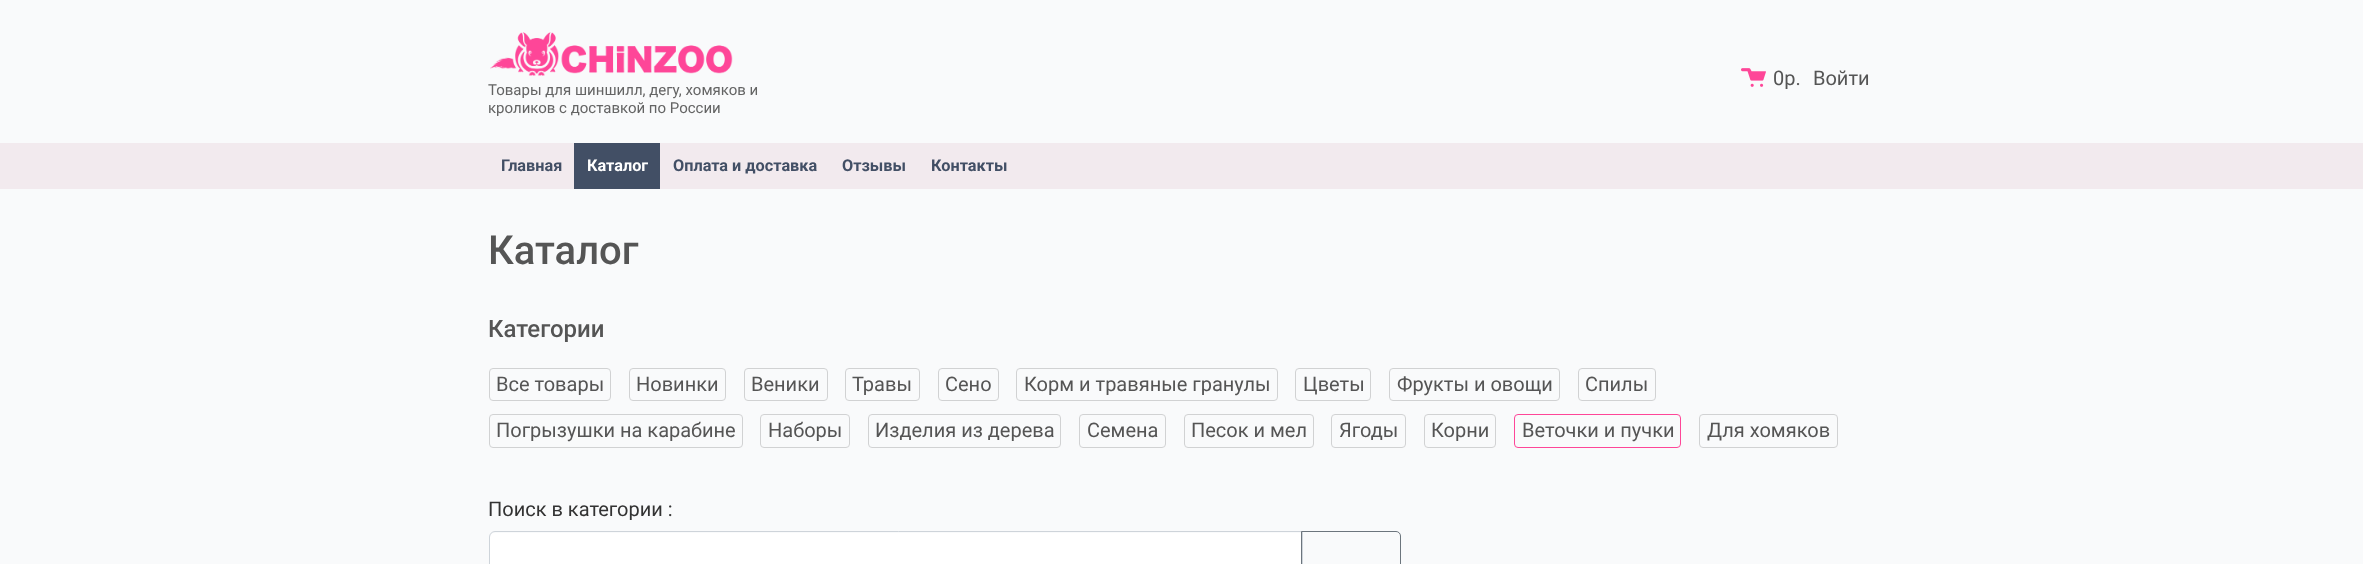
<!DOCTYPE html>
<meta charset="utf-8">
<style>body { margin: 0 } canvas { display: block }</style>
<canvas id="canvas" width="2363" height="564"></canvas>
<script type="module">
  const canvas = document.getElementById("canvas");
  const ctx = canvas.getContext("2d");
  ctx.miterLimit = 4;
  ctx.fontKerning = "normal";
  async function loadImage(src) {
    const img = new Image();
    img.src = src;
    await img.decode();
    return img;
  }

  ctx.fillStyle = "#f9fafb";
  ctx.fillRect(0, 0, 2363, 564);
  ctx.drawImage(await loadImage("img1.png"), 1741, 68, 25, 19);
  ctx.font = "20px Roboto";
  ctx.fillStyle = "#555555";
  ctx.fillText("0р.", 1773, 85);
  ctx.fillText("Войти", 1813, 85);
  ctx.drawImage(await loadImage("img2.png"), 490, 32, 243, 44);
  ctx.font = "15px Roboto";
  ctx.fillStyle = "#646464";
  ctx.fillText("Товары для шиншилл, дегу, хомяков и", 488, 95);
  ctx.fillText("кроликов c доставкой по России", 488, 113);
  ctx.fillStyle = "#f2eaee";
  ctx.fillRect(0, 143, 2363, 46);
  ctx.font = "bold 16.25px Roboto";
  ctx.fillStyle = "#424f65";
  ctx.fillText("Главная", 501, 171);
  ctx.fillRect(574, 143, 86, 46);
  ctx.fillStyle = "#ffffff";
  ctx.fillText("Каталог", 587, 171);
  ctx.fillStyle = "#424f65";
  ctx.fillText("Оплата и доставка", 673, 171);
  ctx.fillText("Отзывы", 842, 171);
  ctx.fillText("Контакты", 931, 171);
  ctx.font = "500 40px Roboto";
  ctx.fillStyle = "#555555";
  ctx.fillText("Каталог", 488, 264);
  ctx.font = "500 24px Roboto";
  ctx.fillText("Категории", 488, 337);
  ctx.beginPath();
  ctx.roundRect(489.5, 368.5, 121, 32, 3.5);
  ctx.strokeStyle = "#d1d2d3";
  ctx.stroke();
  ctx.font = "20px Roboto";
  ctx.fillText("Все товары", 496, 391);
  ctx.beginPath();
  ctx.roundRect(629.5, 368.5, 96, 32, 3.5);
  ctx.stroke();
  ctx.fillText("Новинки", 636, 391);
  ctx.beginPath();
  ctx.roundRect(744.5, 368.5, 83, 32, 3.5);
  ctx.stroke();
  ctx.fillText("Веники", 751, 391);
  ctx.beginPath();
  ctx.roundRect(845.5, 368.5, 74, 32, 3.5);
  ctx.stroke();
  ctx.fillText("Травы", 852, 391);
  ctx.beginPath();
  ctx.roundRect(938.5, 368.5, 60, 32, 3.5);
  ctx.stroke();
  ctx.fillText("Сено", 945, 391);
  ctx.beginPath();
  ctx.roundRect(1016.5, 368.5, 261, 32, 3.5);
  ctx.stroke();
  ctx.fillText("Корм и травяные гранулы", 1024, 391);
  ctx.beginPath();
  ctx.roundRect(1295.5, 368.5, 75, 32, 3.5);
  ctx.stroke();
  ctx.fillText("Цветы", 1303, 391);
  ctx.beginPath();
  ctx.roundRect(1389.5, 368.5, 170, 32, 3.5);
  ctx.stroke();
  ctx.fillText("Фрукты и овощи", 1397, 391);
  ctx.beginPath();
  ctx.roundRect(1578.5, 368.5, 77, 32, 3.5);
  ctx.stroke();
  ctx.fillText("Спилы", 1585, 391);
  ctx.beginPath();
  ctx.roundRect(489.5, 414.5, 253, 33, 3.5);
  ctx.stroke();
  ctx.fillText("Погрызушки на карабине", 496, 437);
  ctx.beginPath();
  ctx.roundRect(760.5, 414.5, 89, 33, 3.5);
  ctx.stroke();
  ctx.fillText("Наборы", 768, 437);
  ctx.beginPath();
  ctx.roundRect(868.5, 414.5, 192, 33, 3.5);
  ctx.stroke();
  ctx.fillText("Изделия из дерева", 875, 437);
  ctx.beginPath();
  ctx.roundRect(1079.5, 414.5, 86, 33, 3.5);
  ctx.stroke();
  ctx.fillText("Семена", 1087, 437);
  ctx.beginPath();
  ctx.roundRect(1184.5, 414.5, 129, 33, 3.5);
  ctx.stroke();
  ctx.fillText("Песок и мел", 1191, 437);
  ctx.beginPath();
  ctx.roundRect(1331.5, 414.5, 74, 33, 3.5);
  ctx.stroke();
  ctx.fillText("Ягоды", 1339, 437);
  ctx.beginPath();
  ctx.roundRect(1424.5, 414.5, 71, 33, 3.5);
  ctx.stroke();
  ctx.fillText("Корни", 1431, 437);
  ctx.beginPath();
  ctx.roundRect(1514.5, 414.5, 166, 33, 3.5);
  ctx.strokeStyle = "#fe4698";
  ctx.stroke();
  ctx.fillText("Веточки и пучки", 1522, 437);
  ctx.beginPath();
  ctx.roundRect(1699.5, 414.5, 138, 33, 3.5);
  ctx.strokeStyle = "#d1d2d3";
  ctx.stroke();
  ctx.fillText("Для хомяков", 1707, 437);
  ctx.fillStyle = "#333333";
  ctx.fillText("Поиск в категории :", 488, 516);
  ctx.fillStyle = "#ffffff";
  ctx.beginPath();
  ctx.moveTo(495, 533);
  ctx.lineTo(1301, 533);
  ctx.lineTo(1301, 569);
  ctx.lineTo(495, 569);
  ctx.bezierCurveTo(492, 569, 490, 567, 490, 564);
  ctx.lineTo(490, 538);
  ctx.bezierCurveTo(490, 535, 492, 533, 495, 533);
  ctx.closePath();
  ctx.fill();
  ctx.beginPath();
  ctx.moveTo(495, 531.5);
  ctx.lineTo(1302.5, 531.5);
  ctx.lineTo(1302.5, 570.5);
  ctx.lineTo(495, 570.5);
  ctx.bezierCurveTo(492, 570.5, 489.5, 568, 489.5, 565);
  ctx.lineTo(489.5, 537);
  ctx.bezierCurveTo(489.5, 534, 492, 531.5, 495, 531.5);
  ctx.closePath();
  ctx.strokeStyle = "#ced4da";
  ctx.stroke();
  ctx.beginPath();
  ctx.moveTo(1301.5, 531.5);
  ctx.lineTo(1396, 531.5);
  ctx.bezierCurveTo(1398.5, 531.5, 1400.5, 533.5, 1400.5, 536);
  ctx.lineTo(1400.5, 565);
  ctx.bezierCurveTo(1400.5, 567.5, 1398.5, 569.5, 1396, 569.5);
  ctx.lineTo(1301.5, 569.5);
  ctx.closePath();
  ctx.strokeStyle = "#6c757d";
  ctx.stroke();
</script>
